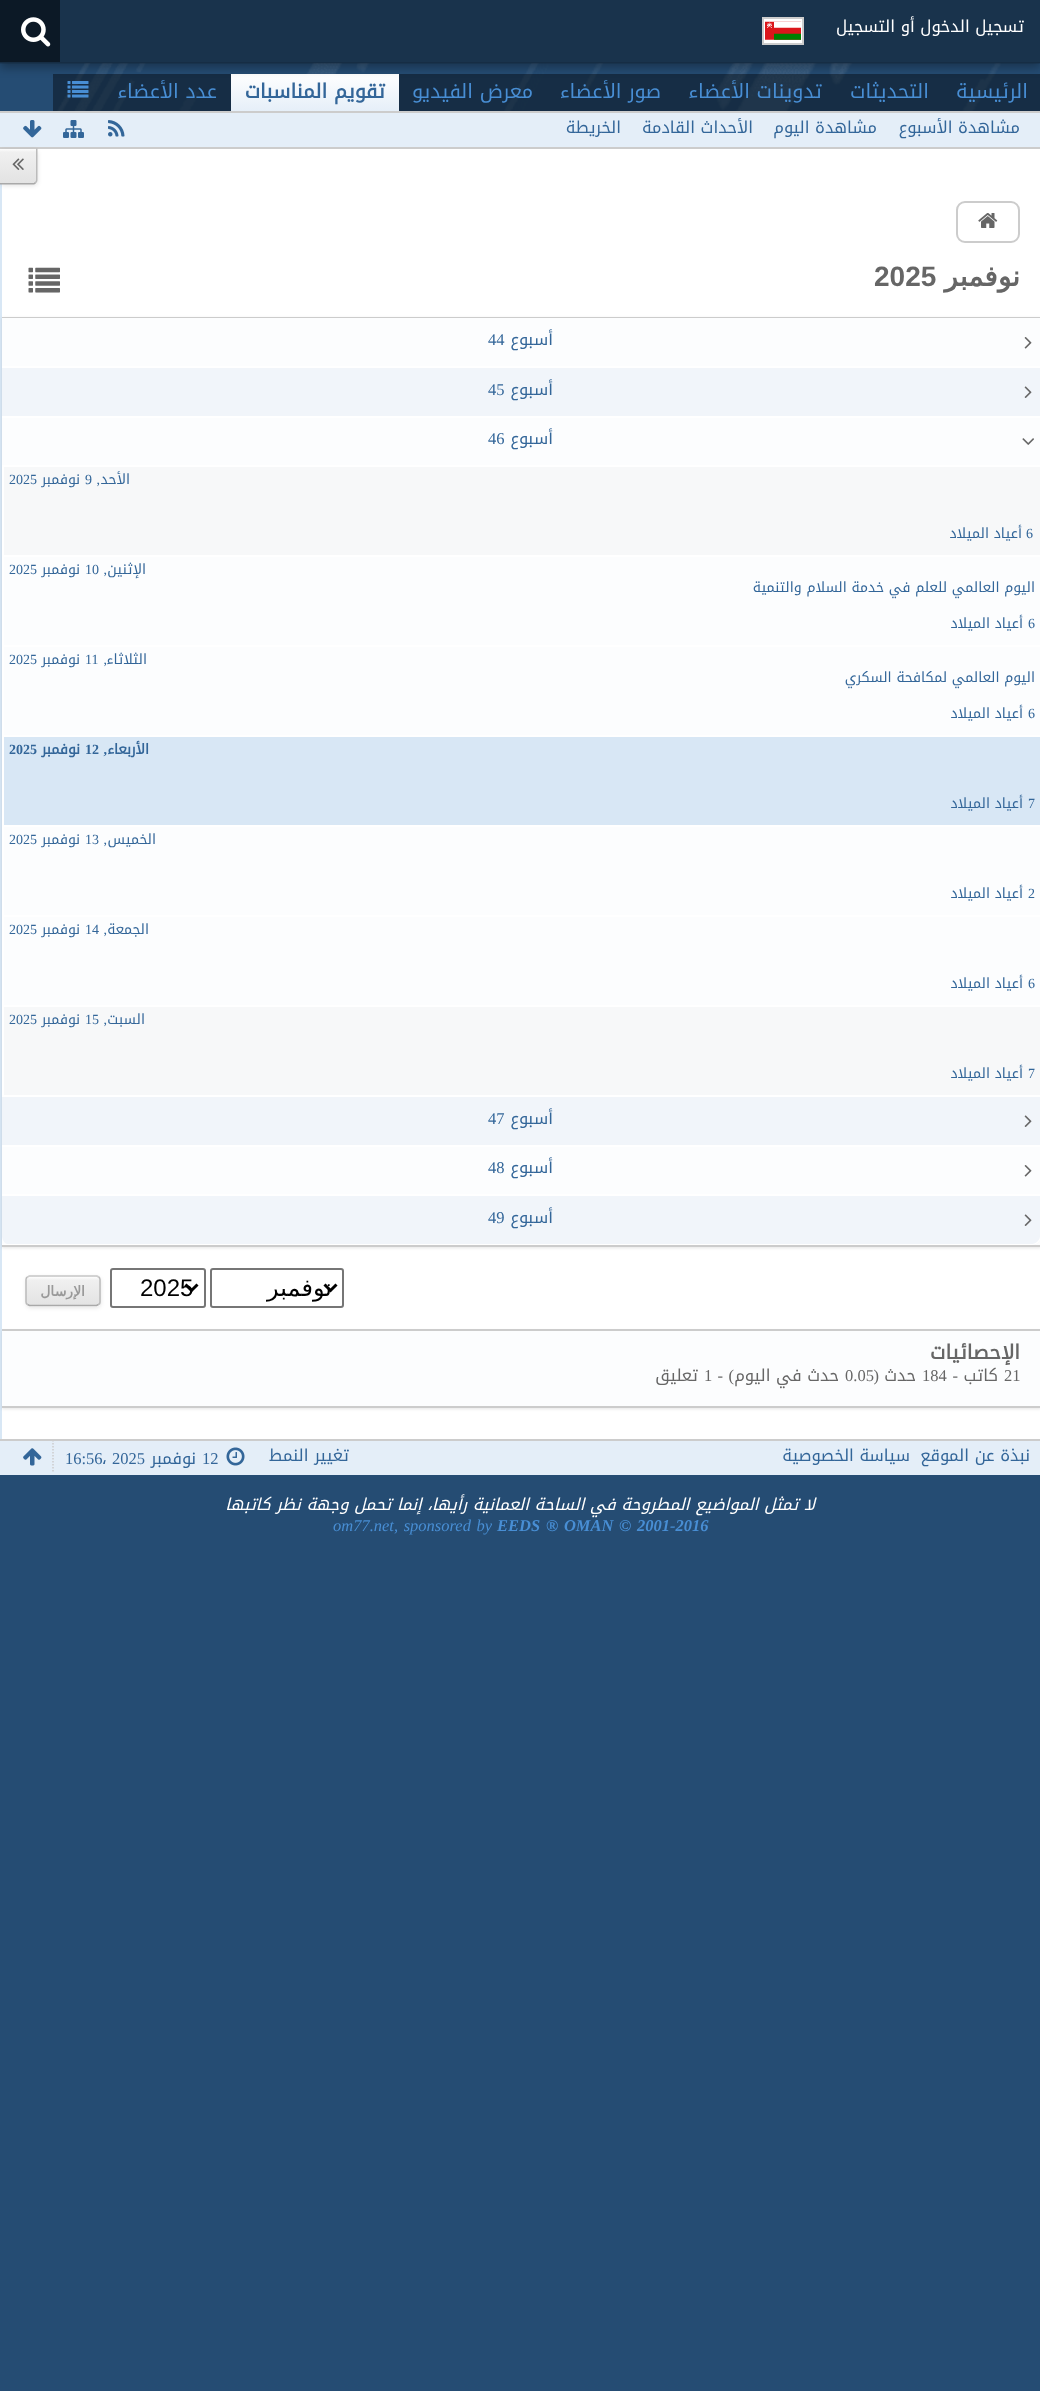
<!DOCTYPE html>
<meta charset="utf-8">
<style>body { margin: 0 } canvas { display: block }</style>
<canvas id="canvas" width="1040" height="2391"></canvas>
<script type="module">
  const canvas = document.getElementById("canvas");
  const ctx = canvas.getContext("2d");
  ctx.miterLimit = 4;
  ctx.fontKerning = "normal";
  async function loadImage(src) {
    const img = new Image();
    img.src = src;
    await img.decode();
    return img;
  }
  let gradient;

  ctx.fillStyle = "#254c73";
  ctx.fillRect(0, 0, 1040, 2391);
  ctx.drawImage(await loadImage("img1.png"), 57, 63, 944, 48);
  ctx.fillStyle = "rgba(0, 0, 0, 0.4)";
  ctx.fillRect(53, 74, 987, 37);
  gradient = ctx.createLinearGradient(315, 73, 315, 113);
  gradient.addColorStop(0, "#ffffff");
  gradient.addColorStop(1, "#e4eef8");
  ctx.fillStyle = gradient;
  ctx.fillRect(231, 74, 168, 37);
  ctx.drawImage(await loadImage("img4.png"), 67, 81, 22, 17);
  ctx.fillStyle = "rgba(0, 0, 0, 0.3)";
  ctx.filter = "blur(5px)";
  ctx.beginPath();
  ctx.rect(0, 5, 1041, 63);
  ctx.fill();
  ctx.filter = "none";
  ctx.fillStyle = "#19334c";
  ctx.fillRect(0, 0, 1040, 63);
  ctx.fillStyle = "rgba(0, 0, 0, 0.1)";
  ctx.fillRect(0, 62, 1040, 2);
  ctx.direction = "rtl";
  ctx.font = "16.5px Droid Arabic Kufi";
  ctx.fillStyle = "#ffffff";
  ctx.fillText("تسجيل الدخول أو التسجيل", 1024, 32);
  ctx.beginPath();
  ctx.rect(763, 18, 40, 26);
  ctx.fill();
  ctx.strokeStyle = "#cccccc";
  ctx.lineWidth = 2;
  ctx.stroke();
  ctx.drawImage(await loadImage("img2.png"), 765, 21, 36, 19);
  ctx.fillStyle = "#0c1926";
  ctx.fillRect(0, 0, 60, 62);
  ctx.drawImage(await loadImage("img3.png"), 21, 17, 30, 30);
  ctx.font = "19.75px Droid Arabic Kufi";
  ctx.fillStyle = "#488ed4";
  ctx.fillText("الرئيسية", 1028, 98);
  ctx.fillText("التحديثات", 929, 98);
  ctx.fillText("تدوينات الأعضاء", 822, 98);
  ctx.fillText("صور الأعضاء", 661, 98);
  ctx.fillText("معرض الفيديو", 533, 98);
  ctx.font = "bold 19.75px Droid Arabic Kufi";
  ctx.fillStyle = "#336699";
  ctx.fillText("تقويم المناسبات", 385, 98);
  ctx.font = "19.75px Droid Arabic Kufi";
  ctx.fillStyle = "#488ed4";
  ctx.fillText("عدد الأعضاء", 217, 98);
  ctx.fillStyle = "#e4eef8";
  ctx.fillRect(0, 113, 1040, 34);
  ctx.fillStyle = "#cccccc";
  ctx.fillRect(0, 111, 1040, 2);
  ctx.fillRect(0, 147, 1040, 2);
  ctx.font = "16.5px Droid Arabic Kufi";
  ctx.fillStyle = "#336699";
  ctx.fillText("مشاهدة الأسبوع", 1020, 133);
  ctx.fillText("مشاهدة اليوم", 877, 133);
  ctx.fillText("الأحداث القادمة", 753, 133);
  ctx.fillText("الخريطة", 621, 133);
  ctx.drawImage(await loadImage("img5.png"), 108, 120, 17, 17);
  ctx.drawImage(await loadImage("img6.png"), 63, 120, 21, 18);
  ctx.drawImage(await loadImage("img7.png"), 23, 120, 19, 18);
  ctx.fillStyle = "#d8e7f5";
  ctx.fillRect(0, 184, 2, 1255);
  ctx.fillStyle = "#ffffff";
  ctx.fillRect(2, 149, 1038, 1290);
  ctx.fillStyle = "rgba(0, 0, 0, 0.1)";
  ctx.filter = "blur(2px)";
  ctx.beginPath();
  ctx.roundRect(0, 150, 38, 36, 5);
  ctx.fill();
  ctx.filter = "none";
  gradient = ctx.createLinearGradient(18, 149, 18, 183);
  gradient.addColorStop(0, "#fdfdfd");
  gradient.addColorStop(0.09, "#f0f0f0");
  gradient.addColorStop(1, "#e3e3e3");
  ctx.fillStyle = gradient;
  ctx.beginPath();
  ctx.roundRect(0, 149, 36, 34, [0, 0, 3, 0]);
  ctx.fill();
  ctx.fillStyle = "#bbbbbb";
  ctx.beginPath();
  ctx.moveTo(37.5, 148.5);
  ctx.lineTo(36, 148.5);
  ctx.lineTo(36, 180);
  ctx.bezierCurveTo(36, 181, 35.5, 181.5, 35, 182);
  ctx.lineTo(36, 183);
  ctx.bezierCurveTo(37, 182.5, 37.5, 181, 37.5, 180);
  ctx.closePath();
  ctx.fill();
  ctx.fillStyle = "#a9a9a9";
  ctx.beginPath();
  ctx.moveTo(0, 183);
  ctx.lineTo(0, 184.5);
  ctx.lineTo(33, 184.5);
  ctx.bezierCurveTo(34, 184.5, 35.5, 184, 36, 183);
  ctx.lineTo(35, 182);
  ctx.bezierCurveTo(34.5, 182.5, 34, 183, 33, 183);
  ctx.closePath();
  ctx.fill();
  ctx.drawImage(await loadImage("img8.png"), 12, 158, 12, 12);
  ctx.beginPath();
  ctx.roundRect(957, 202, 62, 40, 8);
  ctx.stroke();
  ctx.drawImage(await loadImage("img9.png"), 978, 213, 20, 15);
  ctx.font = "bold 28px DejaVu Sans";
  ctx.fillStyle = "#666666";
  ctx.fillText("نوفمبر", 1020, 286);
  ctx.direction = "ltr";
  ctx.font = "bold 28px Liberation Sans";
  ctx.fillText("2025", 874, 286);
  ctx.drawImage(await loadImage("img10.png"), 28, 267, 32, 26);
  ctx.fillStyle = "rgba(0, 0, 0, 0.1)";
  ctx.filter = "blur(1.5px)";
  ctx.beginPath();
  ctx.rect(2, 318, 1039, 930);
  ctx.fill();
  ctx.filter = "none";
  ctx.fillStyle = "#fcfdfe";
  ctx.fillRect(2, 418, 1038, 827);
  ctx.fillStyle = "#cccccc";
  ctx.fillRect(2, 317, 1038, 1);
  ctx.fillRect(2, 1245, 1038, 2);
  ctx.fillStyle = "#fcfdfe";
  ctx.fillRect(2, 318, 1038, 48);
  ctx.fillStyle = "#ffffff";
  ctx.fillRect(2, 366, 1038, 2);
  ctx.drawImage(await loadImage("img11.png"), 1024, 337, 8, 12);
  ctx.direction = "rtl";
  ctx.font = "16.5px Droid Arabic Kufi";
  ctx.fillStyle = "#336699";
  ctx.fillText("ﺃﺳﺒﻮﻉ", 553, 345);
  ctx.direction = "ltr";
  ctx.font = "16.5px Liberation Serif";
  ctx.fillText("44", 488, 345);
  ctx.fillStyle = "#f1f5fa";
  ctx.fillRect(2, 368, 1038, 48);
  ctx.fillStyle = "#ffffff";
  ctx.fillRect(2, 416, 1038, 2);
  ctx.drawImage(await loadImage("img12.png"), 1024, 386, 8, 12);
  ctx.direction = "rtl";
  ctx.font = "16.5px Droid Arabic Kufi";
  ctx.fillStyle = "#336699";
  ctx.fillText("ﺃﺳﺒﻮﻉ", 553, 395);
  ctx.direction = "ltr";
  ctx.font = "16.5px Liberation Serif";
  ctx.fillText("45", 488, 395);
  ctx.fillStyle = "#ffffff";
  ctx.fillRect(2, 465, 1038, 2);
  ctx.drawImage(await loadImage("img13.png"), 1022, 438, 12, 7);
  ctx.direction = "rtl";
  ctx.font = "16.5px Droid Arabic Kufi";
  ctx.fillStyle = "#336699";
  ctx.fillText("ﺃﺳﺒﻮﻉ", 553, 444);
  ctx.direction = "ltr";
  ctx.font = "16.5px Liberation Serif";
  ctx.fillText("46", 488, 444);
  ctx.fillStyle = "#f7f8f9";
  ctx.fillRect(4, 467, 1036, 88);
  ctx.fillStyle = "#ffffff";
  ctx.fillRect(2, 555, 1038, 2);
  ctx.fillRect(2, 467, 2, 90);
  ctx.direction = "rtl";
  ctx.font = "14px Droid Arabic Kufi";
  ctx.fillStyle = "#336699";
  ctx.fillText("الأحد", 130, 484);
  ctx.font = "14px Liberation Serif";
  ctx.fillText(",", 100, 484);
  ctx.direction = "ltr";
  ctx.fillText("9", 85, 484);
  ctx.direction = "rtl";
  ctx.font = "14px Droid Arabic Kufi";
  ctx.fillText("نوفمبر", 80, 484);
  ctx.direction = "ltr";
  ctx.font = "14px Liberation Serif";
  ctx.fillText("2025", 9, 484);
  ctx.fillText("6", 1026, 538);
  ctx.direction = "rtl";
  ctx.font = "14px Droid Arabic Kufi";
  ctx.fillText("أعياد الميلاد", 1022, 538);
  ctx.fillStyle = "#ffffff";
  ctx.fillRect(2, 645, 1038, 2);
  ctx.fillRect(2, 557, 2, 90);
  ctx.fillStyle = "#336699";
  ctx.fillText("الإثنين", 146, 574);
  ctx.font = "14px Liberation Serif";
  ctx.fillText(",", 107, 574);
  ctx.direction = "ltr";
  ctx.fillText("10", 85, 574);
  ctx.direction = "rtl";
  ctx.font = "14px Droid Arabic Kufi";
  ctx.fillText("نوفمبر", 80, 574);
  ctx.direction = "ltr";
  ctx.font = "14px Liberation Serif";
  ctx.fillText("2025", 9, 574);
  ctx.direction = "rtl";
  ctx.font = "14px Droid Arabic Kufi";
  ctx.fillText("اليوم العالمي للعلم في خدمة السلام والتنمية", 1035, 592);
  ctx.direction = "ltr";
  ctx.font = "14px Liberation Serif";
  ctx.fillText("6", 1028, 628);
  ctx.direction = "rtl";
  ctx.font = "14px Droid Arabic Kufi";
  ctx.fillText("أعياد الميلاد", 1023, 628);
  ctx.fillStyle = "#ffffff";
  ctx.fillRect(2, 735, 1038, 2);
  ctx.fillRect(2, 647, 2, 90);
  ctx.fillStyle = "#336699";
  ctx.fillText("الثلاثاء", 147, 664);
  ctx.direction = "ltr";
  ctx.font = "14px Liberation Serif";
  ctx.fillText("11", 85, 664);
  ctx.direction = "rtl";
  ctx.font = "14px Droid Arabic Kufi";
  ctx.fillText("نوفمبر", 80, 664);
  ctx.direction = "ltr";
  ctx.font = "14px Liberation Serif";
  ctx.fillText("2025", 9, 664);
  ctx.direction = "rtl";
  ctx.fillText(",", 107, 664);
  ctx.save();
  ctx.beginPath();
  ctx.rect(9, 671, 1026, 18);
  ctx.clip();
  ctx.font = "14px Droid Arabic Kufi";
  ctx.fillText("اليوم العالمي لمكافحة السكري", 1035, 682);
  ctx.restore();
  ctx.direction = "ltr";
  ctx.fillText("6", 1028, 718);
  ctx.direction = "rtl";
  ctx.font = "14px Droid Arabic Kufi";
  ctx.fillText("أعياد الميلاد", 1023, 718);
  ctx.fillStyle = "#d8e7f5";
  ctx.fillRect(4, 737, 1036, 88);
  ctx.fillStyle = "#ffffff";
  ctx.fillRect(2, 825, 1038, 2);
  ctx.fillRect(2, 737, 2, 90);
  ctx.font = "bold 14px Droid Arabic Kufi";
  ctx.fillStyle = "#336699";
  ctx.fillText("الأربعاء", 149, 754);
  ctx.font = "bold 14px Liberation Serif";
  ctx.fillText(",", 107, 754);
  ctx.direction = "ltr";
  ctx.fillText("12", 85, 754);
  ctx.direction = "rtl";
  ctx.font = "bold 14px Droid Arabic Kufi";
  ctx.fillText("نوفمبر", 80, 754);
  ctx.direction = "ltr";
  ctx.font = "bold 14px Liberation Serif";
  ctx.fillText("2025", 9, 754);
  ctx.font = "14px Liberation Serif";
  ctx.fillText("7", 1028, 808);
  ctx.direction = "rtl";
  ctx.font = "14px Droid Arabic Kufi";
  ctx.fillText("أعياد الميلاد", 1023, 808);
  ctx.fillStyle = "#ffffff";
  ctx.fillRect(2, 915, 1038, 2);
  ctx.fillRect(2, 827, 2, 90);
  ctx.fillStyle = "#336699";
  ctx.fillText("الخميس", 156, 844);
  ctx.font = "14px Liberation Serif";
  ctx.fillText(",", 107, 844);
  ctx.direction = "ltr";
  ctx.fillText("13", 85, 844);
  ctx.direction = "rtl";
  ctx.font = "14px Droid Arabic Kufi";
  ctx.fillText("نوفمبر", 80, 844);
  ctx.direction = "ltr";
  ctx.font = "14px Liberation Serif";
  ctx.fillText("2025", 9, 844);
  ctx.fillText("2", 1028, 898);
  ctx.direction = "rtl";
  ctx.font = "14px Droid Arabic Kufi";
  ctx.fillText("أعياد الميلاد", 1023, 898);
  ctx.fillStyle = "#ffffff";
  ctx.fillRect(2, 1005, 1038, 2);
  ctx.fillRect(2, 917, 2, 90);
  ctx.fillStyle = "#336699";
  ctx.fillText("الجمعة", 149, 934);
  ctx.direction = "ltr";
  ctx.font = "14px Liberation Serif";
  ctx.fillText("14", 85, 934);
  ctx.direction = "rtl";
  ctx.font = "14px Droid Arabic Kufi";
  ctx.fillText("نوفمبر", 80, 934);
  ctx.direction = "ltr";
  ctx.font = "14px Liberation Serif";
  ctx.fillText("2025", 9, 934);
  ctx.direction = "rtl";
  ctx.fillText(",", 107, 934);
  ctx.direction = "ltr";
  ctx.fillText("6", 1028, 988);
  ctx.direction = "rtl";
  ctx.font = "14px Droid Arabic Kufi";
  ctx.fillText("أعياد الميلاد", 1023, 988);
  ctx.fillStyle = "#f7f8f9";
  ctx.fillRect(4, 1007, 1036, 88);
  ctx.fillStyle = "#ffffff";
  ctx.fillRect(2, 1095, 1038, 2);
  ctx.fillRect(2, 1007, 2, 90);
  ctx.fillStyle = "#336699";
  ctx.fillText("السبت", 145, 1024);
  ctx.font = "14px Liberation Serif";
  ctx.fillText(",", 107, 1024);
  ctx.direction = "ltr";
  ctx.fillText("15", 85, 1024);
  ctx.direction = "rtl";
  ctx.font = "14px Droid Arabic Kufi";
  ctx.fillText("نوفمبر", 80, 1024);
  ctx.direction = "ltr";
  ctx.font = "14px Liberation Serif";
  ctx.fillText("2025", 9, 1024);
  ctx.fillText("7", 1028, 1078);
  ctx.direction = "rtl";
  ctx.font = "14px Droid Arabic Kufi";
  ctx.fillText("أعياد الميلاد", 1023, 1078);
  ctx.fillStyle = "#f1f5fa";
  ctx.fillRect(2, 1097, 1038, 48);
  ctx.fillStyle = "#ffffff";
  ctx.fillRect(2, 1145, 1038, 2);
  ctx.drawImage(await loadImage("img12.png"), 1024, 1115, 8, 12);
  ctx.font = "16.5px Droid Arabic Kufi";
  ctx.fillStyle = "#336699";
  ctx.fillText("ﺃﺳﺒﻮﻉ", 553, 1124);
  ctx.direction = "ltr";
  ctx.font = "16.5px Liberation Serif";
  ctx.fillText("47", 488, 1124);
  ctx.fillStyle = "#ffffff";
  ctx.fillRect(2, 1194, 1038, 2);
  ctx.drawImage(await loadImage("img11.png"), 1024, 1165, 8, 12);
  ctx.direction = "rtl";
  ctx.font = "16.5px Droid Arabic Kufi";
  ctx.fillStyle = "#336699";
  ctx.fillText("ﺃﺳﺒﻮﻉ", 553, 1173);
  ctx.direction = "ltr";
  ctx.font = "16.5px Liberation Serif";
  ctx.fillText("48", 488, 1173);
  ctx.fillStyle = "#f1f5fa";
  ctx.beginPath();
  ctx.moveTo(2, 1196);
  ctx.lineTo(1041, 1196);
  ctx.lineTo(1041, 1236);
  ctx.bezierCurveTo(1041, 1241, 1037, 1245, 1032, 1245);
  ctx.lineTo(11, 1245);
  ctx.bezierCurveTo(6, 1245, 2, 1241, 2, 1236);
  ctx.closePath();
  ctx.fill();
  ctx.fillStyle = "#ffffff";
  ctx.beginPath();
  ctx.moveTo(2, 1196);
  ctx.lineTo(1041, 1196);
  ctx.lineTo(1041, 1236);
  ctx.bezierCurveTo(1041, 1241, 1037, 1245, 1032, 1245);
  ctx.lineTo(2, 1245);
  ctx.closePath();
  ctx.moveTo(2, 1196);
  ctx.lineTo(1040, 1196);
  ctx.lineTo(1040, 1236);
  ctx.bezierCurveTo(1040, 1240, 1036, 1244, 1032, 1244);
  ctx.lineTo(2, 1244);
  ctx.closePath();
  ctx.fill("evenodd");
  ctx.drawImage(await loadImage("img12.png"), 1024, 1214, 8, 12);
  ctx.direction = "rtl";
  ctx.font = "16.5px Droid Arabic Kufi";
  ctx.fillStyle = "#336699";
  ctx.fillText("ﺃﺳﺒﻮﻉ", 553, 1223);
  ctx.direction = "ltr";
  ctx.font = "16.5px Liberation Serif";
  ctx.fillText("49", 488, 1223);
  ctx.beginPath();
  ctx.roundRect(211, 1269, 132, 38, 2);
  ctx.strokeStyle = "#767676";
  ctx.stroke();
  ctx.beginPath();
  ctx.moveTo(324.5, 1284.5);
  ctx.lineTo(330.5, 1290.5);
  ctx.lineTo(336.5, 1284.5);
  ctx.strokeStyle = "#000000";
  ctx.lineWidth = 3;
  ctx.stroke();
  ctx.direction = "rtl";
  ctx.font = "24px DejaVu Sans";
  ctx.fillStyle = "#000000";
  ctx.fillText("نوفمبر", 332, 1296);
  ctx.beginPath();
  ctx.roundRect(111, 1269, 94, 38, 2);
  ctx.strokeStyle = "#767676";
  ctx.lineWidth = 2;
  ctx.stroke();
  ctx.beginPath();
  ctx.moveTo(185.5, 1284.5);
  ctx.lineTo(191.5, 1290.5);
  ctx.lineTo(197.5, 1284.5);
  ctx.strokeStyle = "#000000";
  ctx.lineWidth = 3;
  ctx.stroke();
  ctx.direction = "ltr";
  ctx.font = "24px Liberation Sans";
  ctx.fillText("2025", 140, 1296);
  ctx.fillStyle = "rgba(0, 0, 0, 0.1)";
  ctx.filter = "blur(2px)";
  ctx.beginPath();
  ctx.roundRect(26, 1277, 75, 31, 5);
  ctx.fill();
  ctx.filter = "none";
  ctx.save();
  ctx.beginPath();
  ctx.roundRect(26, 1275, 75, 32, 5);
  ctx.clip();
  gradient = ctx.createLinearGradient(63, 1248, 63, 1277);
  gradient.addColorStop(0, "#fdfdfd");
  gradient.addColorStop(0.11, "#f0f0f0");
  gradient.addColorStop(1, "#e3e3e3");
  ctx.fillStyle = gradient;
  ctx.fillRect(26, 1275, 75, 2);
  gradient = ctx.createLinearGradient(63, 1277, 63, 1305);
  gradient.addColorStop(0, "#fdfdfd");
  gradient.addColorStop(0.11, "#f0f0f0");
  gradient.addColorStop(1, "#e3e3e3");
  ctx.fillStyle = gradient;
  ctx.fillRect(26, 1277, 75, 28);
  gradient = ctx.createLinearGradient(63, 1305, 63, 1334);
  gradient.addColorStop(0, "#fdfdfd");
  gradient.addColorStop(0.11, "#f0f0f0");
  gradient.addColorStop(1, "#e3e3e3");
  ctx.fillStyle = gradient;
  ctx.fillRect(26, 1305, 75, 2);
  ctx.restore();
  ctx.beginPath();
  ctx.moveTo(27.5, 1277);
  ctx.lineTo(29.5, 1276);
  ctx.lineTo(96.5, 1276);
  ctx.lineTo(98.5, 1277);
  ctx.strokeStyle = "#cdcdcd";
  ctx.lineWidth = 1.5;
  ctx.stroke();
  ctx.beginPath();
  ctx.moveTo(98.5, 1277);
  ctx.bezierCurveTo(99.5, 1277.5, 100, 1278.5, 100, 1279.5);
  ctx.lineTo(100, 1302);
  ctx.bezierCurveTo(100, 1303, 99.5, 1304, 98.5, 1304.5);
  ctx.strokeStyle = "#bbbbbb";
  ctx.stroke();
  ctx.beginPath();
  ctx.moveTo(98.5, 1304.5);
  ctx.lineTo(96.5, 1305.5);
  ctx.lineTo(29.5, 1305.5);
  ctx.lineTo(27.5, 1304.5);
  ctx.strokeStyle = "#a9a9a9";
  ctx.stroke();
  ctx.beginPath();
  ctx.moveTo(27.5, 1304.5);
  ctx.bezierCurveTo(26.5, 1304, 26, 1303, 26, 1302);
  ctx.lineTo(26, 1279.5);
  ctx.bezierCurveTo(26, 1278.5, 26.5, 1277.5, 27.5, 1277);
  ctx.strokeStyle = "#bbbbbb";
  ctx.stroke();
  ctx.direction = "rtl";
  ctx.font = "bold 14px DejaVu Sans";
  ctx.fillStyle = "#999999";
  ctx.fillText("الإرسال", 85, 1296);
  ctx.fillStyle = "rgba(0, 0, 0, 0.1)";
  ctx.filter = "blur(1.5px)";
  ctx.beginPath();
  ctx.rect(2, 1331, 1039, 78);
  ctx.fill();
  ctx.filter = "none";
  ctx.fillStyle = "#fcfdfe";
  ctx.fillRect(2, 1331, 1038, 75);
  ctx.fillStyle = "#cccccc";
  ctx.fillRect(2, 1329, 1038, 2);
  ctx.fillRect(2, 1406, 1038, 2);
  ctx.font = "bold 19.75px Droid Arabic Kufi";
  ctx.fillStyle = "#666666";
  ctx.fillText("الإحصائيات", 1020, 1359);
  ctx.direction = "ltr";
  ctx.font = "16.5px Liberation Serif";
  ctx.fillText("21", 1004, 1381);
  ctx.direction = "rtl";
  ctx.font = "16.5px Droid Arabic Kufi";
  ctx.fillText("كاتب", 998, 1381);
  ctx.font = "16.5px Liberation Serif";
  ctx.fillText("-", 958, 1381);
  ctx.direction = "ltr";
  ctx.fillText("184", 922, 1381);
  ctx.direction = "rtl";
  ctx.font = "16.5px Droid Arabic Kufi";
  ctx.fillText("حدث", 916, 1381);
  ctx.font = "16.5px Liberation Serif";
  ctx.fillText("(", 879, 1381);
  ctx.direction = "ltr";
  ctx.fillText("0.05", 845, 1381);
  ctx.direction = "rtl";
  ctx.font = "16.5px Droid Arabic Kufi";
  ctx.fillText("حدث في اليوم", 839, 1381);
  ctx.font = "16.5px Liberation Serif";
  ctx.fillText(")", 734, 1381);
  ctx.fillText("-", 723, 1381);
  ctx.direction = "ltr";
  ctx.fillText("1", 704, 1381);
  ctx.direction = "rtl";
  ctx.font = "16.5px Droid Arabic Kufi";
  ctx.fillText("تعليق", 698, 1381);
  ctx.fillStyle = "#e4eef8";
  ctx.fillRect(0, 1441, 1040, 34);
  ctx.fillStyle = "#cccccc";
  ctx.fillRect(0, 1439, 1040, 2);
  ctx.fillStyle = "#336699";
  ctx.fillText("نبذة عن الموقع", 1030, 1461);
  ctx.fillText("سياسة الخصوصية", 910, 1461);
  ctx.beginPath();
  ctx.moveTo(53, 1440);
  ctx.lineTo(53, 1473);
  ctx.strokeStyle = "#cccccc";
  ctx.setLineDash([1.5, 1.5]);
  ctx.stroke();
  ctx.fillText("تغيير النمط", 349, 1461);
  ctx.drawImage(await loadImage("img14.png"), 226, 1447, 19, 19);
  ctx.direction = "ltr";
  ctx.font = "16.5px Liberation Serif";
  ctx.fillText("12", 202, 1464);
  ctx.direction = "rtl";
  ctx.font = "16.5px Droid Arabic Kufi";
  ctx.fillText("نوفمبر", 196, 1464);
  ctx.direction = "ltr";
  ctx.font = "16.5px Liberation Serif";
  ctx.fillText("2025", 112, 1464);
  ctx.font = "16.5px Droid Arabic Kufi";
  ctx.fillText("،", 102, 1464);
  ctx.font = "16.5px Liberation Serif";
  ctx.fillText("16:56", 65, 1464);
  ctx.drawImage(await loadImage("img15.png"), 23, 1448, 19, 18);
  ctx.direction = "rtl";
  ctx.font = "italic 16.5px Droid Arabic Kufi";
  ctx.fillStyle = "#ffffff";
  ctx.fillText("لا تمثل المواضيع المطروحة في الساحة العمانية رأيها، إنما تحمل وجهة نظر كاتبها", 815, 1510);
  ctx.wordSpacing = "1.5px";
  ctx.direction = "ltr";
  ctx.font = "italic bold 16.5px Liberation Serif";
  ctx.fillStyle = "#488ed4";
  ctx.fillText("® OMAN © 2001-2016", 546, 1531);
  ctx.wordSpacing = "0px";
  ctx.fillText("EEDS", 497, 1531);
  ctx.wordSpacing = "1.5px";
  ctx.font = "italic 16.5px Liberation Serif";
  ctx.fillText("om77.net, sponsored by", 333, 1531);
</script>
